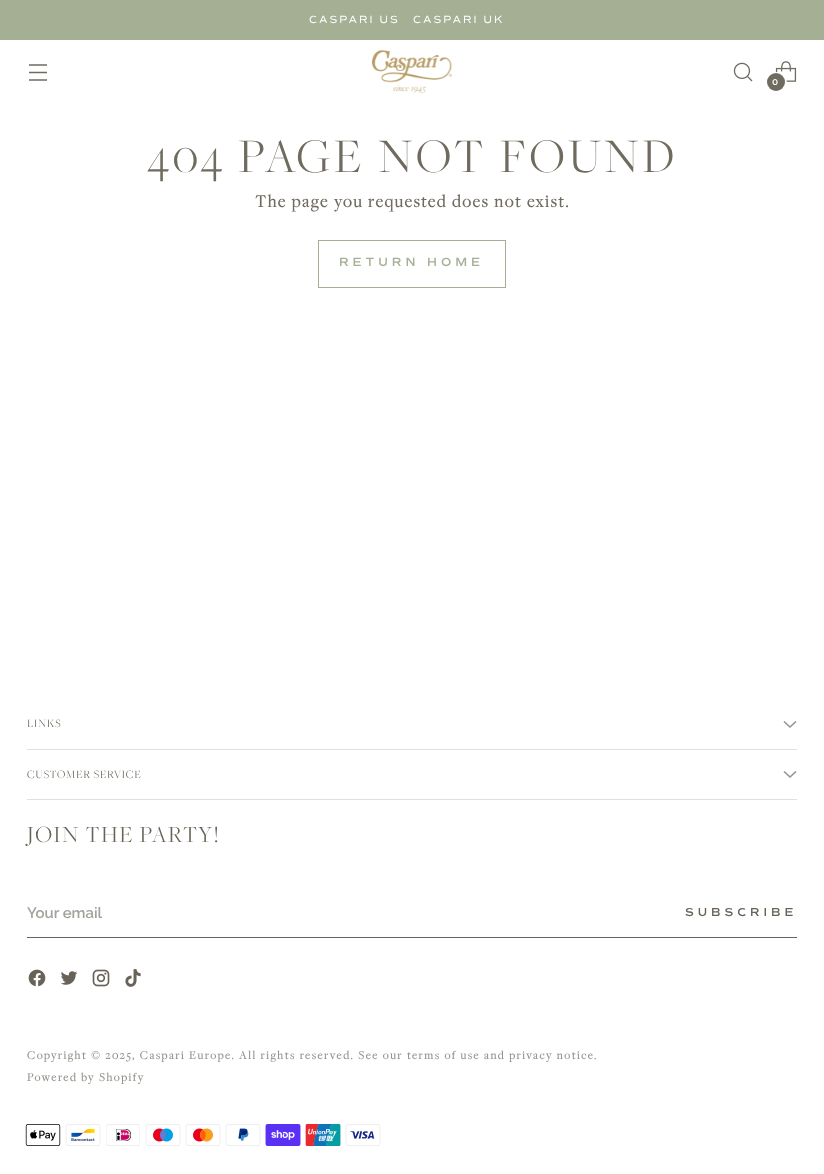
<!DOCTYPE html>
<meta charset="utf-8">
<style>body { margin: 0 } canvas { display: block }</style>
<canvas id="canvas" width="824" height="1174"></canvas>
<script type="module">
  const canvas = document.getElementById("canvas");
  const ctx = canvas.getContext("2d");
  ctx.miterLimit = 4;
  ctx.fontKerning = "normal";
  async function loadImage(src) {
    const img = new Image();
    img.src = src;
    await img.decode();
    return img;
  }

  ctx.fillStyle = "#ffffff";
  ctx.fillRect(0, 0, 824, 1174);
  ctx.fillStyle = "#a4af94";
  ctx.fillRect(0, 0, 824, 40);
  ctx.letterSpacing = "2px";
  ctx.font = "10.5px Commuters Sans";
  ctx.fillStyle = "#ffffff";
  ctx.fillText("CASPARI US", 309, 23);
  ctx.fillText("CASPARI UK", 413, 23);
  ctx.beginPath();
  ctx.moveTo(29, 72.5);
  ctx.lineTo(47, 72.5);
  ctx.moveTo(29, 65);
  ctx.lineTo(47, 65);
  ctx.moveTo(29, 80);
  ctx.lineTo(47, 80);
  ctx.strokeStyle = "#706b5f";
  ctx.lineWidth = 1.3;
  ctx.stroke();
  ctx.drawImage(await loadImage("img1.png"), 372, 50, 80, 44);
  ctx.drawImage(await loadImage("img2.png"), 733, 62, 20, 20);
  ctx.drawImage(await loadImage("img3.png"), 775, 61, 22, 21);
  ctx.beginPath();
  ctx.arc(776.5, 82.5, 9.5, 0, Math.PI * 2);
  ctx.strokeStyle = "#ffffff";
  ctx.lineWidth = 2;
  ctx.stroke();
  ctx.fillStyle = "#706b5f";
  ctx.beginPath();
  ctx.arc(776, 82, 9, 0, Math.PI * 2);
  ctx.fill();
  ctx.font = "600 10px Raleway";
  ctx.fillStyle = "#ffffff";
  ctx.fillText("0", 772, 85);
  ctx.letterSpacing = "3.5px";
  ctx.font = "300 50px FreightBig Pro";
  ctx.fillStyle = "#706b5f";
  ctx.fillText("404 PAGE NOT FOUND", 147, 172);
  ctx.letterSpacing = "1.75px";
  ctx.font = "bold 18px FreightBig Pro";
  ctx.fillText("The page you requested does not exist.", 255, 207);
  ctx.strokeStyle = "#a4af94";
  ctx.lineWidth = 1;
  ctx.strokeRect(318.5, 240.5, 187, 47);
  ctx.letterSpacing = "4px";
  ctx.font = "600 12px Commuters Sans";
  ctx.fillStyle = "#a4af94";
  ctx.fillText("RETURN HOME", 339, 266);
  ctx.fillStyle = "#e1e0de";
  ctx.fillRect(27, 749, 770, 1);
  ctx.letterSpacing = "0.6px";
  ctx.font = "300 11.75px FreightBig Pro";
  ctx.fillStyle = "#686359";
  ctx.fillText("LINKS", 27, 727);
  ctx.beginPath();
  ctx.moveTo(784, 721.5);
  ctx.lineTo(790, 727);
  ctx.lineTo(796, 721.5);
  ctx.moveTo(784, 771.5);
  ctx.lineTo(790, 777);
  ctx.lineTo(796, 771.5);
  ctx.strokeStyle = "#95928b";
  ctx.lineWidth = 1.6;
  ctx.stroke();
  ctx.fillStyle = "#e1e0de";
  ctx.fillRect(27, 799, 770, 1);
  ctx.fillStyle = "#686359";
  ctx.fillText("CUSTOMER SERVICE", 27, 778);
  ctx.letterSpacing = "1.25px";
  ctx.font = "300 24px FreightBig Pro";
  ctx.fillText("JOIN THE PARTY!", 27, 842);
  ctx.fillRect(27, 937, 770, 1);
  ctx.letterSpacing = "0px";
  ctx.font = "600 15px Raleway";
  ctx.fillStyle = "#a4a19b";
  ctx.fillText("Your email", 27, 918);
  ctx.letterSpacing = "4px";
  ctx.font = "600 11.75px Commuters Sans";
  ctx.fillStyle = "#686359";
  ctx.fillText("SUBSCRIBE", 685, 916);
  ctx.drawImage(await loadImage("img4.png"), 28, 969, 18, 18);
  ctx.drawImage(await loadImage("img5.png"), 61, 971, 17, 14);
  ctx.drawImage(await loadImage("img6.png"), 92, 969, 18, 18);
  ctx.drawImage(await loadImage("img7.png"), 125, 969, 16, 18);
  ctx.letterSpacing = "1.75px";
  ctx.font = "bold 12px FreightBig Pro";
  ctx.fillStyle = "#95928b";
  ctx.fillText("Copyright © 2025, Caspari Europe. All rights reserved. See our terms of use and privacy notice.", 27, 1059);
  ctx.fillText("Powered by Shopify", 27, 1081);
  ctx.drawImage(await loadImage("img8.png"), 25, 1124, 36, 22);
  ctx.drawImage(await loadImage("img9.png"), 65, 1124, 36, 22);
  ctx.drawImage(await loadImage("img10.png"), 106, 1124, 34, 22);
  ctx.drawImage(await loadImage("img11.png"), 145, 1124, 36, 22);
  ctx.drawImage(await loadImage("img12.png"), 185, 1124, 36, 22);
  ctx.drawImage(await loadImage("img13.png"), 225, 1124, 36, 22);
  ctx.drawImage(await loadImage("img14.png"), 265, 1124, 36, 22);
  ctx.drawImage(await loadImage("img15.png"), 305, 1124, 36, 22);
  ctx.drawImage(await loadImage("img16.png"), 345, 1124, 36, 22);
</script>
